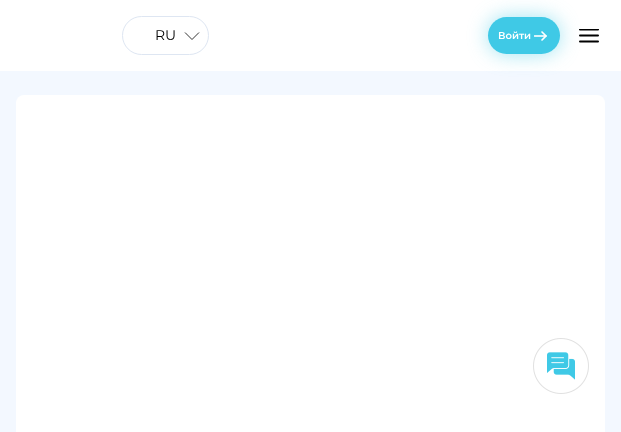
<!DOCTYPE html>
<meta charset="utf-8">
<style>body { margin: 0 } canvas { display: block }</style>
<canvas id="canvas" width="621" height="432"></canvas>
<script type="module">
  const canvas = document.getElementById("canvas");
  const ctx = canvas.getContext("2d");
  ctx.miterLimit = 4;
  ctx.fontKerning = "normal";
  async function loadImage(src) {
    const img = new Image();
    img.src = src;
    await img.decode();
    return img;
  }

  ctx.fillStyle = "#ffffff";
  ctx.fillRect(0, 0, 621, 432);
  ctx.beginPath();
  ctx.roundRect(122.5, 16.5, 86, 38, 19);
  ctx.strokeStyle = "#dee6f2";
  ctx.stroke();
  ctx.font = "14px Montserrat";
  ctx.fillStyle = "#000000";
  ctx.fillText("RU", 155, 40);
  ctx.beginPath();
  ctx.moveTo(185, 32.5);
  ctx.lineTo(192, 39.5);
  ctx.lineTo(199, 32.5);
  ctx.strokeStyle = "#000000";
  ctx.lineWidth = 0.8;
  ctx.stroke();
  ctx.fillStyle = "#f3f8ff";
  ctx.fillRect(0, 71, 621, 361);
  ctx.fillStyle = "rgba(63, 201, 230, 0.5)";
  ctx.filter = "blur(10px)";
  ctx.beginPath();
  ctx.roundRect(488, 17, 72, 37, 18.5);
  ctx.fill();
  ctx.filter = "none";
  ctx.fillStyle = "#3fc9e6";
  ctx.beginPath();
  ctx.roundRect(488, 17, 72, 37, 18.5);
  ctx.fill();
  ctx.font = "600 10px Montserrat";
  ctx.fillStyle = "#ffffff";
  ctx.fillText("Войти", 498, 39);
  ctx.drawImage(await loadImage("img1.png"), 534, 31, 13, 10);
  ctx.save();
  ctx.beginPath();
  ctx.rect(579, 29, 20, 15);
  ctx.clip();
  ctx.beginPath();
  ctx.moveTo(580, 29.5);
  ctx.lineTo(598, 29.5);
  ctx.lineWidth = 2;
  ctx.lineCap = "round";
  ctx.lineJoin = "round";
  ctx.stroke();
  ctx.restore();
  ctx.beginPath();
  ctx.moveTo(580, 35.5);
  ctx.lineTo(598, 35.5);
  ctx.moveTo(580, 41.5);
  ctx.lineTo(598, 41.5);
  ctx.lineWidth = 2;
  ctx.lineCap = "round";
  ctx.lineJoin = "round";
  ctx.stroke();
  ctx.beginPath();
  ctx.roundRect(16, 95, 589, 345, 8);
  ctx.fill();
  ctx.drawImage(await loadImage("img2.png"), 533, 338, 56, 56);
</script>
